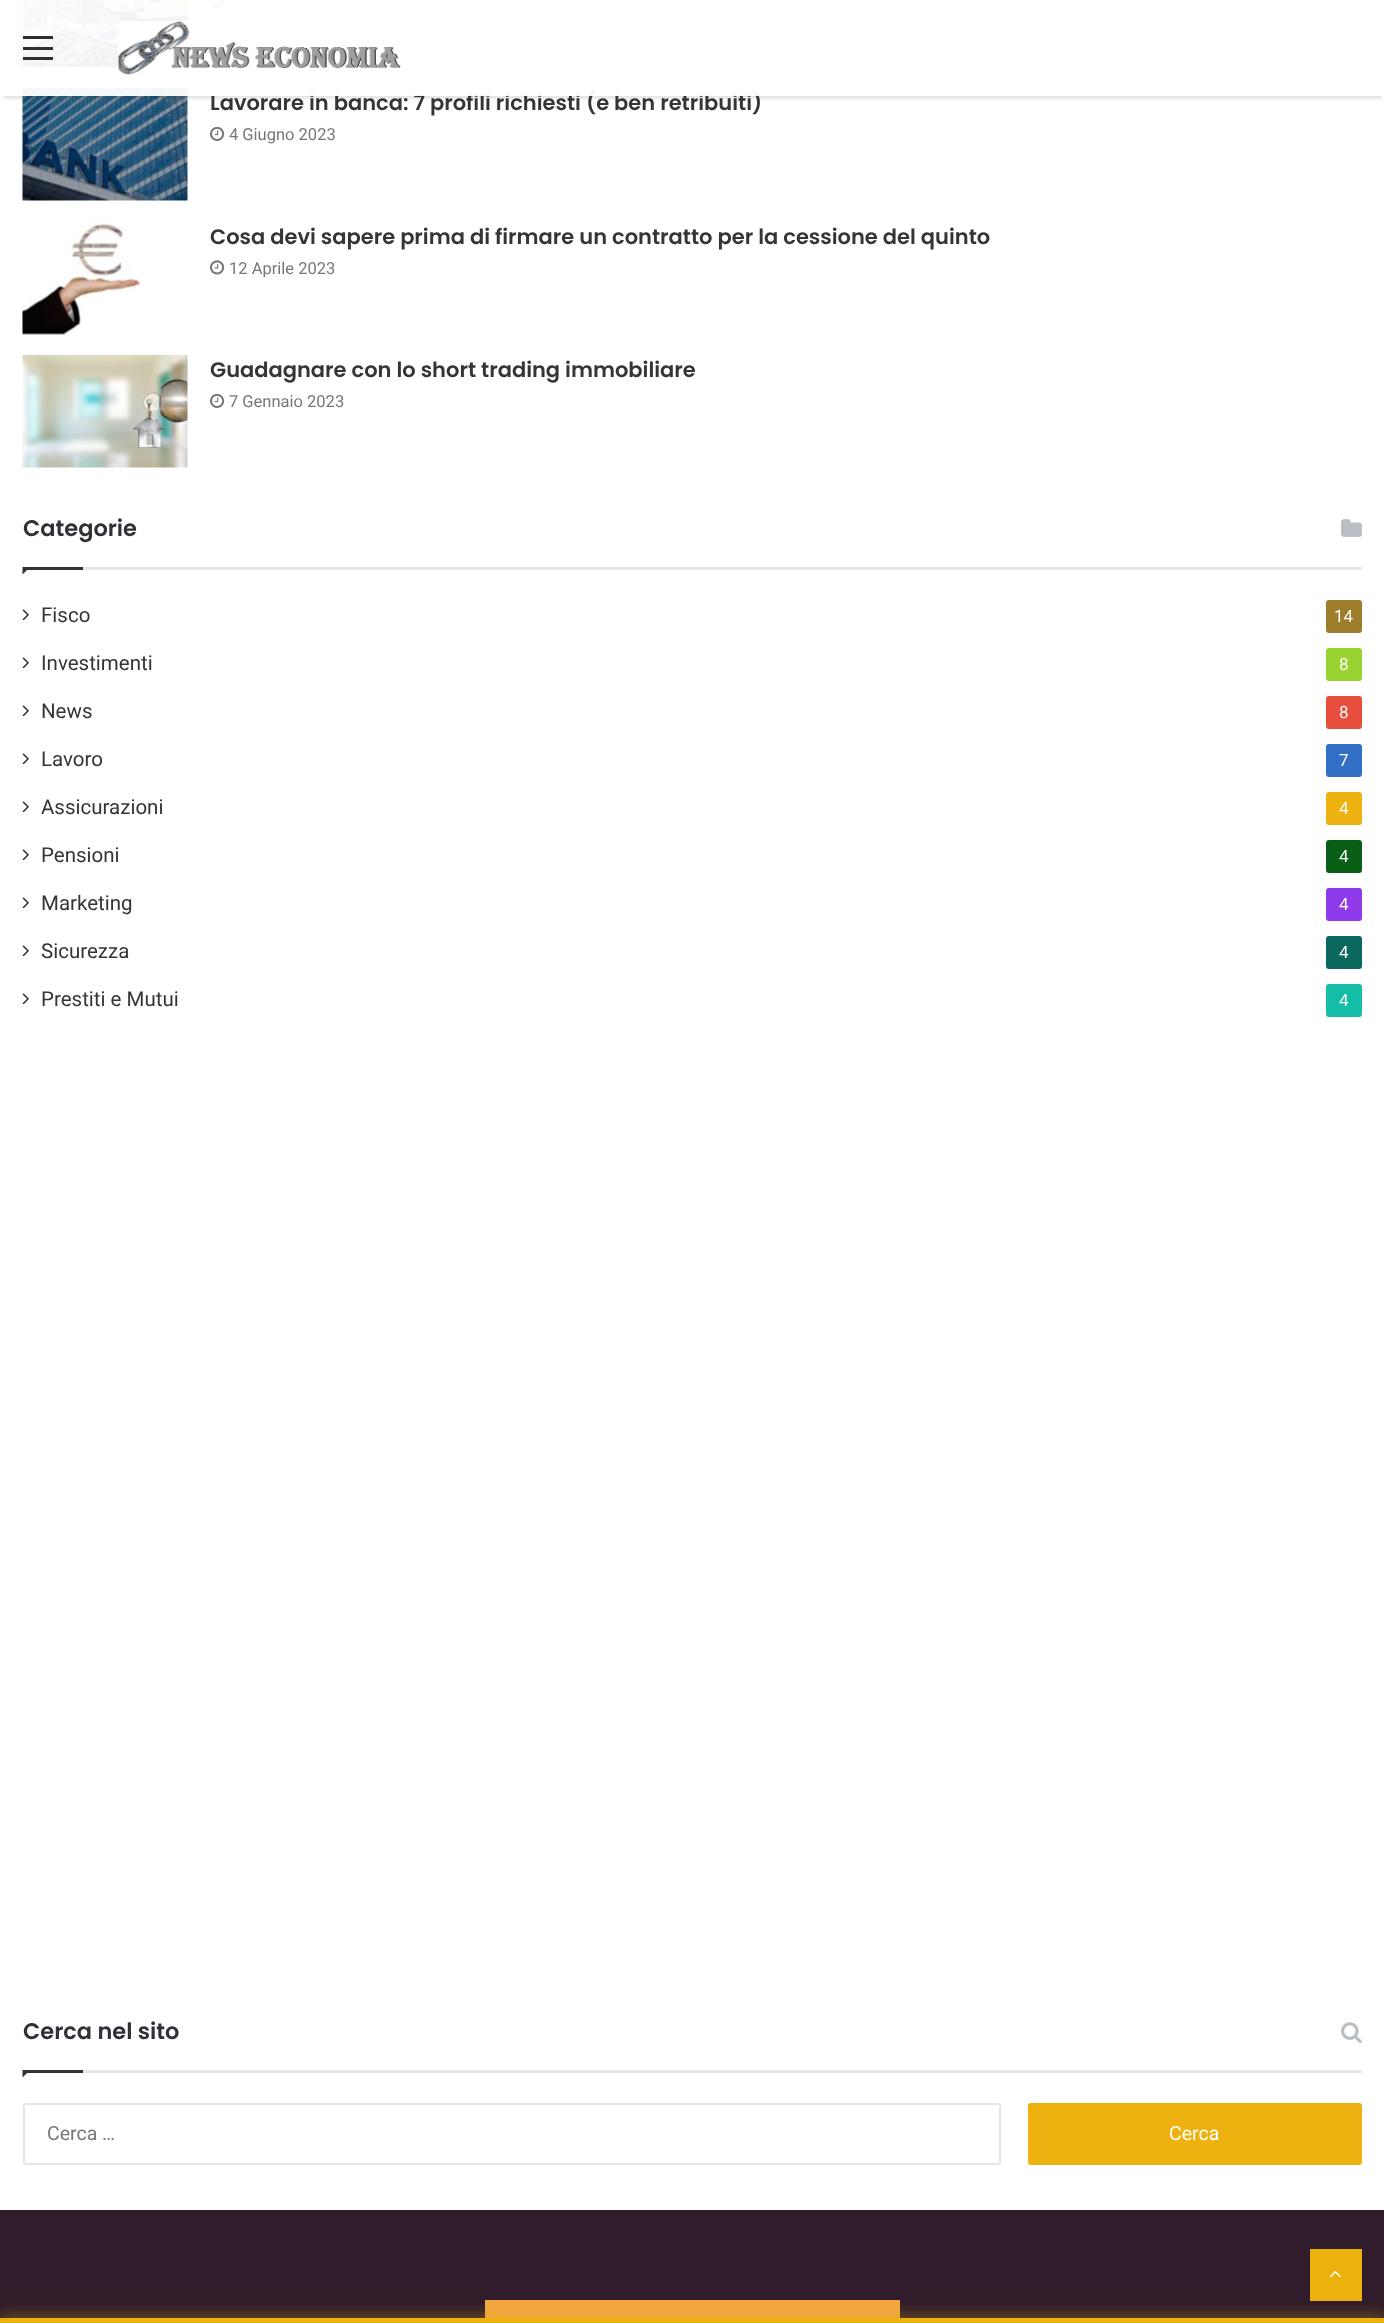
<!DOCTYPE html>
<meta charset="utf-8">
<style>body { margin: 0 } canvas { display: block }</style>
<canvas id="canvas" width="1384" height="2323"></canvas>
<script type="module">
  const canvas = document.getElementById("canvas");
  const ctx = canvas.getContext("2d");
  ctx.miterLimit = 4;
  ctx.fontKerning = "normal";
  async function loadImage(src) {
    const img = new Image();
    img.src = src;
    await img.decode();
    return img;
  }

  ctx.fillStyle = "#ffffff";
  ctx.fillRect(0, 0, 1384, 2323);
  ctx.drawImage(await loadImage("img2.png"), 23, 0, 165, 67);
  ctx.drawImage(await loadImage("img3.png"), 210, 0, 15, 8);
  ctx.drawImage(await loadImage("img4.png"), 22, 87, 166, 114);
  ctx.save();
  ctx.beginPath();
  ctx.rect(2, 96, 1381, 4);
  ctx.clip();
  ctx.fillStyle = "rgba(0, 0, 0, 0.1)";
  ctx.filter = "blur(1.5px)";
  ctx.beginPath();
  ctx.rect(3, 9, 1379, 90);
  ctx.fill();
  ctx.filter = "none";
  ctx.restore();
  ctx.font = "600 21px Poppins";
  ctx.fillStyle = "#353535";
  ctx.fillText("Lavorare in banca: 7 profili richiesti (e ben retribuiti)", 210, 110);
  ctx.fillStyle = "rgba(255, 255, 255, 0.95)";
  ctx.fillRect(22, 0, 737, 96);
  ctx.fillStyle = "#2c2f34";
  ctx.fillRect(23, 47, 30, 3);
  ctx.fillRect(23, 36, 30, 3);
  ctx.fillRect(23, 57, 30, 3);
  ctx.drawImage(await loadImage("img1.png"), 118, 21, 283, 54);
  ctx.drawImage(await loadImage("img5.png"), 210, 126, 15, 15);
  ctx.font = "16.5px Roboto";
  ctx.fillStyle = "#777777";
  ctx.fillText("4 Giugno 2023", 229, 140);
  ctx.drawImage(await loadImage("img6.png"), 22, 222, 121, 113);
  ctx.font = "600 21px Poppins";
  ctx.fillStyle = "#353535";
  ctx.fillText("Cosa devi sapere prima di firmare un contratto per la cessione del quinto", 210, 244);
  ctx.drawImage(await loadImage("img7.png"), 210, 260, 15, 15);
  ctx.font = "16.5px Roboto";
  ctx.fillStyle = "#777777";
  ctx.fillText("12 Aprile 2023", 229, 274);
  ctx.drawImage(await loadImage("img8.png"), 22, 355, 166, 113);
  ctx.font = "600 21px Poppins";
  ctx.fillStyle = "#353535";
  ctx.fillText("Guadagnare con lo short trading immobiliare", 210, 377);
  ctx.drawImage(await loadImage("img5.png"), 210, 393, 15, 15);
  ctx.font = "16.5px Roboto";
  ctx.fillStyle = "#777777";
  ctx.fillText("7 Gennaio 2023", 229, 407);
  ctx.fillStyle = "#e6e6e6";
  ctx.fillRect(83, 567, 1279, 3);
  ctx.font = "600 22.5px Poppins";
  ctx.fillStyle = "#2e3136";
  ctx.fillText("Categorie", 23, 536);
  ctx.drawImage(await loadImage("img9.png"), 1341, 519, 21, 18);
  ctx.beginPath();
  ctx.moveTo(22.5, 567);
  ctx.lineTo(30, 567);
  ctx.lineTo(22.5, 574.5);
  ctx.closePath();
  ctx.fill();
  ctx.fillRect(23, 567, 60, 3);
  ctx.drawImage(await loadImage("img10.png"), 22, 609, 7, 12);
  ctx.font = "20.5px Roboto";
  ctx.fillStyle = "#353535";
  ctx.fillText("Fisco", 41, 622);
  ctx.fillStyle = "#9f7c2b";
  ctx.beginPath();
  ctx.roundRect(1326, 600, 36, 33, 3);
  ctx.fill();
  ctx.font = "17px Roboto";
  ctx.fillStyle = "#ffffff";
  ctx.fillText("14", 1334, 622);
  ctx.drawImage(await loadImage("img10.png"), 22, 657, 7, 12);
  ctx.font = "20.5px Roboto";
  ctx.fillStyle = "#353535";
  ctx.fillText("Investimenti", 41, 670);
  ctx.fillStyle = "#98d332";
  ctx.beginPath();
  ctx.roundRect(1326, 648, 36, 33, 3);
  ctx.fill();
  ctx.font = "17px Roboto";
  ctx.fillStyle = "#ffffff";
  ctx.fillText("8", 1339, 670);
  ctx.drawImage(await loadImage("img10.png"), 22, 705, 7, 12);
  ctx.font = "20.5px Roboto";
  ctx.fillStyle = "#353535";
  ctx.fillText("News", 41, 718);
  ctx.fillStyle = "#e74e3e";
  ctx.beginPath();
  ctx.roundRect(1326, 696, 36, 33, 3);
  ctx.fill();
  ctx.font = "17px Roboto";
  ctx.fillStyle = "#ffffff";
  ctx.fillText("8", 1339, 718);
  ctx.drawImage(await loadImage("img10.png"), 22, 753, 7, 12);
  ctx.font = "20.5px Roboto";
  ctx.fillStyle = "#353535";
  ctx.fillText("Lavoro", 41, 766);
  ctx.fillStyle = "#3170c5";
  ctx.beginPath();
  ctx.roundRect(1326, 744, 36, 33, 3);
  ctx.fill();
  ctx.font = "17px Roboto";
  ctx.fillStyle = "#ffffff";
  ctx.fillText("7", 1339, 766);
  ctx.drawImage(await loadImage("img10.png"), 22, 801, 7, 12);
  ctx.font = "20.5px Roboto";
  ctx.fillStyle = "#353535";
  ctx.fillText("Assicurazioni", 41, 814);
  ctx.fillStyle = "#edb210";
  ctx.beginPath();
  ctx.roundRect(1326, 792, 36, 33, 3);
  ctx.fill();
  ctx.font = "17px Roboto";
  ctx.fillStyle = "#ffffff";
  ctx.fillText("4", 1339, 814);
  ctx.drawImage(await loadImage("img10.png"), 22, 849, 7, 12);
  ctx.font = "20.5px Roboto";
  ctx.fillStyle = "#353535";
  ctx.fillText("Pensioni", 41, 862);
  ctx.fillStyle = "#086017";
  ctx.beginPath();
  ctx.roundRect(1326, 840, 36, 33, 3);
  ctx.fill();
  ctx.font = "17px Roboto";
  ctx.fillStyle = "#ffffff";
  ctx.fillText("4", 1339, 862);
  ctx.drawImage(await loadImage("img10.png"), 22, 897, 7, 12);
  ctx.font = "20.5px Roboto";
  ctx.fillStyle = "#353535";
  ctx.fillText("Marketing", 41, 910);
  ctx.fillStyle = "#8f3aea";
  ctx.beginPath();
  ctx.roundRect(1326, 888, 36, 33, 3);
  ctx.fill();
  ctx.font = "17px Roboto";
  ctx.fillStyle = "#ffffff";
  ctx.fillText("4", 1339, 910);
  ctx.drawImage(await loadImage("img10.png"), 22, 945, 7, 12);
  ctx.font = "20.5px Roboto";
  ctx.fillStyle = "#353535";
  ctx.fillText("Sicurezza", 41, 958);
  ctx.fillStyle = "#0b685e";
  ctx.beginPath();
  ctx.roundRect(1326, 936, 36, 33, 3);
  ctx.fill();
  ctx.font = "17px Roboto";
  ctx.fillStyle = "#ffffff";
  ctx.fillText("4", 1339, 958);
  ctx.drawImage(await loadImage("img10.png"), 22, 993, 7, 12);
  ctx.font = "20.5px Roboto";
  ctx.fillStyle = "#353535";
  ctx.fillText("Prestiti e Mutui", 41, 1006);
  ctx.fillStyle = "#14bda7";
  ctx.beginPath();
  ctx.roundRect(1326, 984, 36, 33, 3);
  ctx.fill();
  ctx.font = "17px Roboto";
  ctx.fillStyle = "#ffffff";
  ctx.fillText("4", 1339, 1006);
  ctx.fillStyle = "#e6e6e6";
  ctx.fillRect(83, 2070, 1279, 3);
  ctx.font = "600 22.5px Poppins";
  ctx.fillStyle = "#2e3136";
  ctx.fillText("Cerca nel sito", 23, 2039);
  ctx.drawImage(await loadImage("img11.png"), 1341, 2022, 21, 21);
  ctx.beginPath();
  ctx.moveTo(22.5, 2070);
  ctx.lineTo(30, 2070);
  ctx.lineTo(22.5, 2077.5);
  ctx.closePath();
  ctx.fill();
  ctx.fillRect(23, 2070, 60, 3);
  ctx.beginPath();
  ctx.roundRect(24, 2104, 976, 60, 2);
  ctx.strokeStyle = "#e6e6e6";
  ctx.lineWidth = 2;
  ctx.stroke();
  ctx.font = "19.5px Roboto";
  ctx.fillStyle = "#777777";
  ctx.fillText("Cerca …", 47, 2140);
  ctx.fillStyle = "#edb210";
  ctx.beginPath();
  ctx.roundRect(1028, 2103, 334, 62, 3);
  ctx.fill();
  ctx.fillStyle = "#ffffff";
  ctx.fillText("Cerca", 1169, 2140);
  ctx.fillStyle = "#301c2a";
  ctx.fillRect(0, 2210, 1384, 108);
  ctx.fillStyle = "#f2a541";
  ctx.fillRect(485, 2300, 415, 18);
  ctx.fillStyle = "#edb10e";
  ctx.fillRect(1310, 2249, 52, 52);
  ctx.drawImage(await loadImage("img12.png"), 1329, 2270, 12, 8);
  ctx.fillStyle = "rgba(237, 177, 14, 0.7)";
  ctx.filter = "blur(7.5px)";
  ctx.beginPath();
  ctx.rect(0, 2318, 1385, 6);
  ctx.fill();
  ctx.filter = "none";
  ctx.fillStyle = "#edb10e";
  ctx.fillRect(0, 2318, 1384, 5);
</script>
